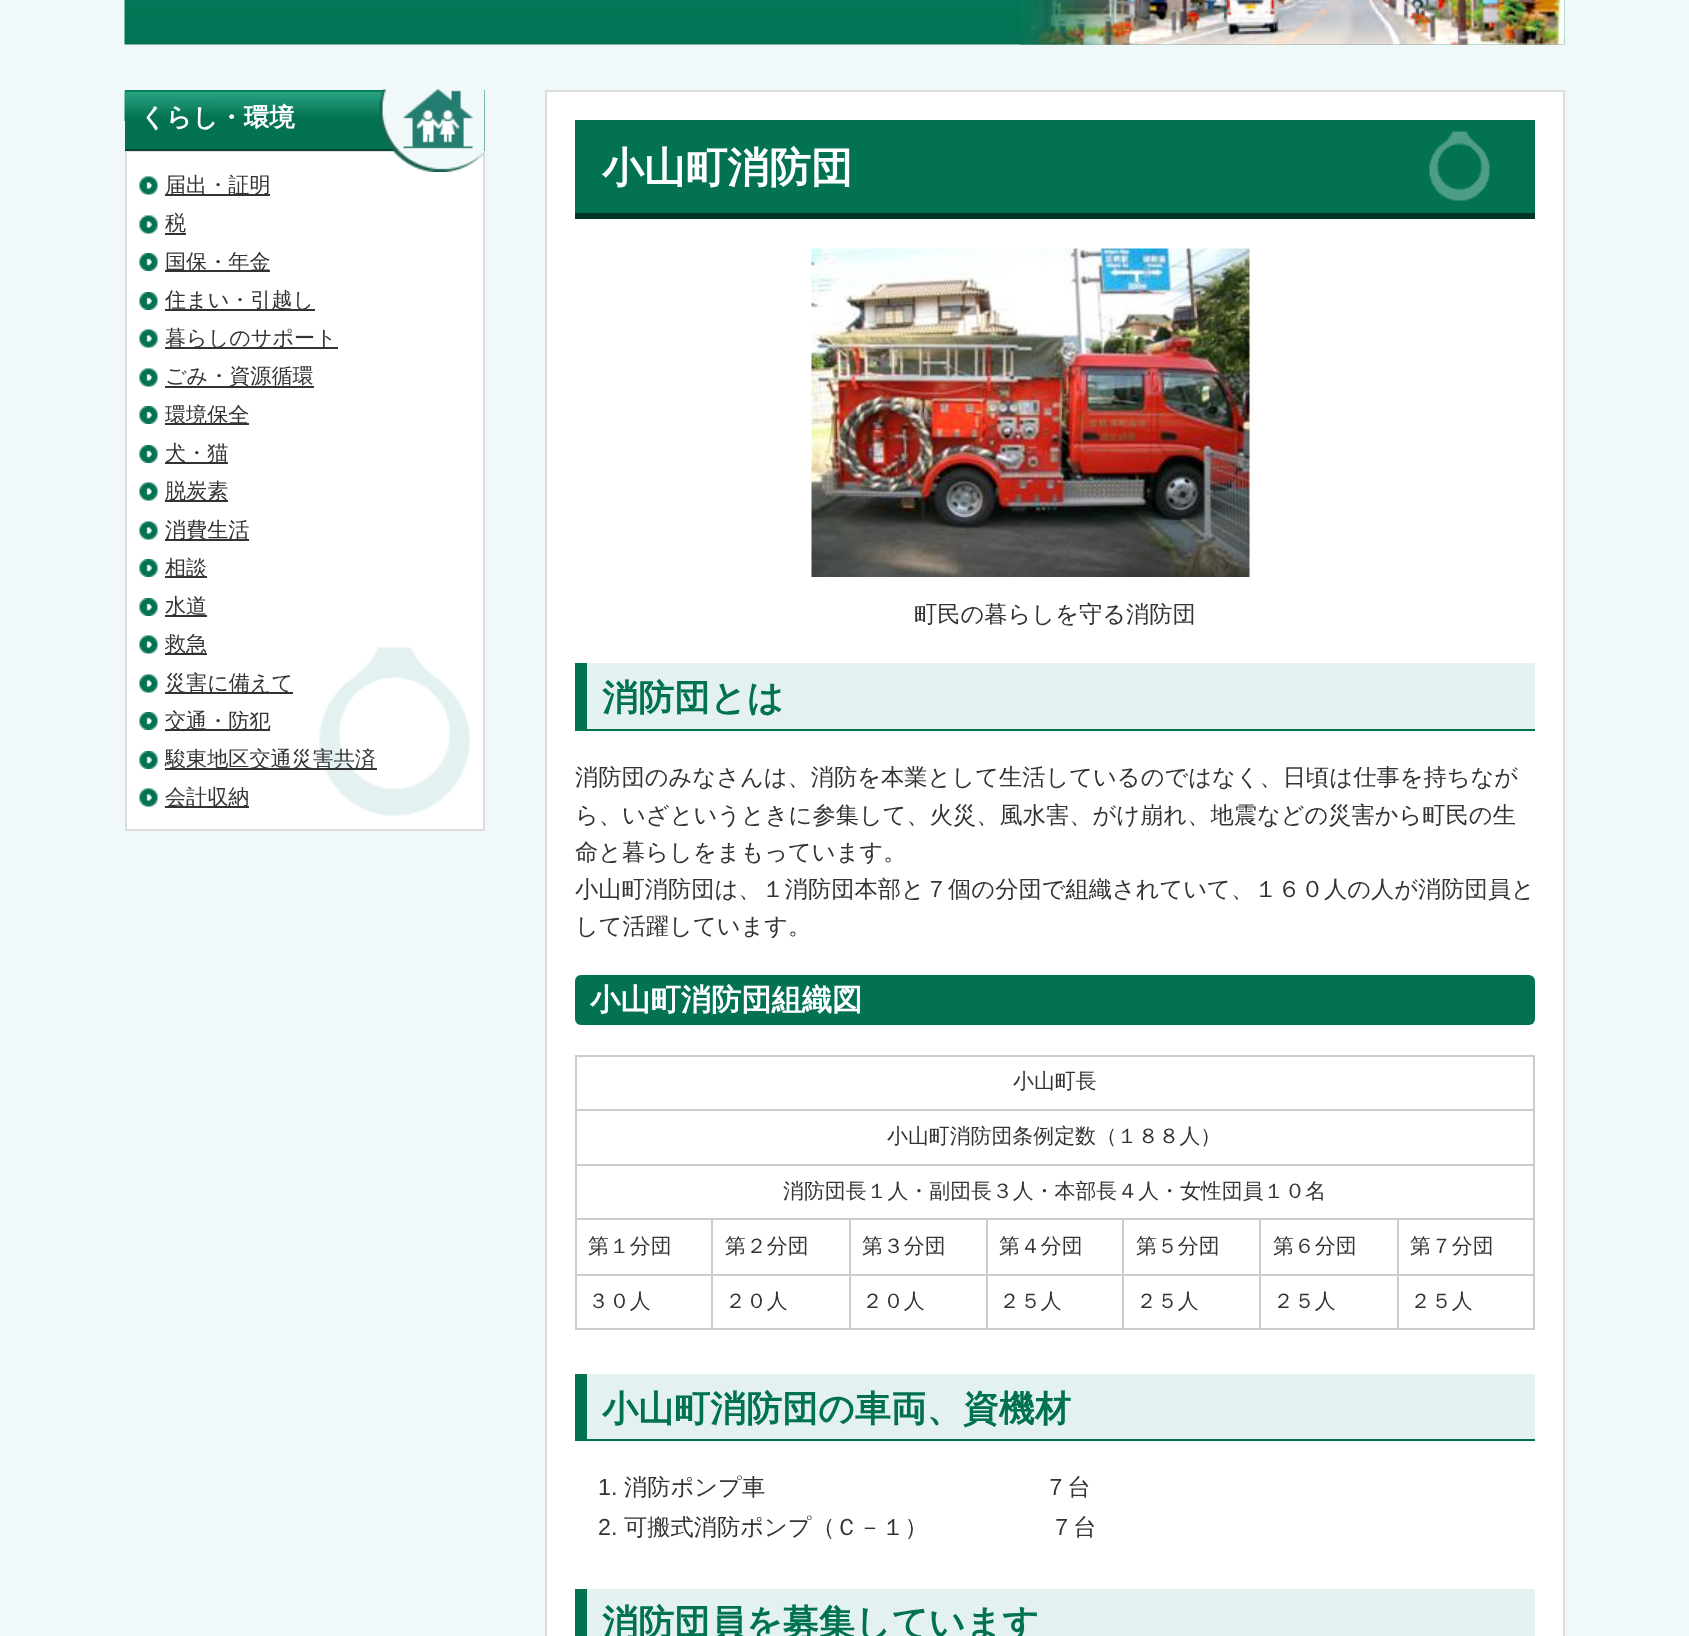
<!DOCTYPE html>
<meta charset="utf-8">
<style>body { margin: 0 } canvas { display: block }</style>
<canvas id="canvas" width="1689" height="1636"></canvas>
<script type="module">
  const canvas = document.getElementById("canvas");
  const ctx = canvas.getContext("2d");
  ctx.miterLimit = 4;
  ctx.fontKerning = "normal";
  async function loadImage(src) {
    const img = new Image();
    img.src = src;
    await img.decode();
    return img;
  }

  ctx.fillStyle = "#f1f8fa";
  ctx.fillRect(0, 0, 1689, 1636);
  ctx.drawImage(await loadImage("img1.png"), 124, 0, 1441, 45);
  ctx.drawImage(await loadImage("img2.png"), 1020, 0, 545, 45);
  ctx.fillStyle = "#027253";
  ctx.fillRect(125, 92, 360, 57);
  ctx.drawImage(await loadImage("img3.png"), 124, 91, 361, 30);
  ctx.fillStyle = "#02825f";
  ctx.fillRect(125, 90, 360, 2);
  ctx.fillStyle = "#ffffff";
  ctx.fillRect(127, 152, 356, 677);
  ctx.drawImage(await loadImage("img5.png"), 319, 647, 151, 169);
  ctx.strokeStyle = "#dddddd";
  ctx.lineWidth = 2;
  ctx.strokeRect(126, 151, 358, 679);
  ctx.fillStyle = "#014532";
  ctx.fillRect(125, 149, 360, 2);
  ctx.font = "bold 25.5px WenQuanYi Zen Hei";
  ctx.fillStyle = "#ffffff";
  ctx.fillText("くらし・環境", 140, 126);
  ctx.drawImage(await loadImage("img4.png"), 379, 89, 106, 83);
  ctx.drawImage(await loadImage("img6.png"), 139, 176, 19, 19);
  ctx.fillStyle = "#333333";
  ctx.fillRect(165, 194, 105, 2);
  ctx.font = "500 21.1px WenQuanYi Zen Hei";
  ctx.fillText("届出・証明", 165, 192);
  ctx.drawImage(await loadImage("img6.png"), 139, 215, 19, 19);
  ctx.fillText("税", 165, 230);
  ctx.fillRect(165, 233, 21, 2);
  ctx.drawImage(await loadImage("img7.png"), 139, 253, 19, 18);
  ctx.fillRect(165, 270, 105, 2);
  ctx.fillText("国保・年金", 165, 269);
  ctx.drawImage(await loadImage("img7.png"), 139, 292, 19, 18);
  ctx.fillRect(165, 309, 150, 2);
  ctx.fillText("住まい・引越し", 165, 307);
  ctx.drawImage(await loadImage("img6.png"), 139, 329, 19, 19);
  ctx.fillRect(165, 347, 173, 2);
  ctx.fillText("暮らしのサポート", 165, 345);
  ctx.drawImage(await loadImage("img6.png"), 139, 368, 19, 19);
  ctx.fillRect(165, 386, 149, 2);
  ctx.fillText("ごみ・資源循環", 165, 383);
  ctx.drawImage(await loadImage("img7.png"), 139, 406, 19, 18);
  ctx.fillRect(165, 423, 84, 2);
  ctx.fillText("環境保全", 165, 422);
  ctx.drawImage(await loadImage("img7.png"), 139, 445, 19, 18);
  ctx.fillRect(165, 462, 63, 2);
  ctx.fillText("犬・猫", 165, 460);
  ctx.drawImage(await loadImage("img6.png"), 139, 482, 19, 19);
  ctx.fillRect(165, 500, 63, 2);
  ctx.fillText("脱炭素", 165, 498);
  ctx.drawImage(await loadImage("img6.png"), 139, 521, 19, 19);
  ctx.fillRect(165, 539, 84, 2);
  ctx.fillText("消費生活", 165, 537);
  ctx.drawImage(await loadImage("img7.png"), 139, 559, 19, 18);
  ctx.fillRect(165, 576, 42, 2);
  ctx.fillText("相談", 165, 575);
  ctx.drawImage(await loadImage("img7.png"), 139, 598, 19, 18);
  ctx.fillRect(165, 615, 42, 2);
  ctx.fillText("水道", 165, 613);
  ctx.drawImage(await loadImage("img6.png"), 139, 635, 19, 19);
  ctx.fillRect(165, 653, 42, 2);
  ctx.fillText("救急", 165, 651);
  ctx.drawImage(await loadImage("img6.png"), 139, 674, 19, 19);
  ctx.fillRect(165, 692, 128, 2);
  ctx.fillText("災害に備えて", 165, 690);
  ctx.drawImage(await loadImage("img7.png"), 139, 712, 19, 18);
  ctx.fillRect(165, 729, 105, 2);
  ctx.fillText("交通・防犯", 165, 728);
  ctx.drawImage(await loadImage("img7.png"), 139, 751, 19, 18);
  ctx.fillRect(165, 768, 212, 2);
  ctx.fillText("駿東地区交通災害共済", 165, 766);
  ctx.drawImage(await loadImage("img6.png"), 139, 788, 19, 19);
  ctx.fillRect(165, 806, 84, 2);
  ctx.fillText("会計収納", 165, 804);
  ctx.fillStyle = "#ffffff";
  ctx.beginPath();
  ctx.rect(546, 91, 1018, 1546);
  ctx.fill();
  ctx.stroke();
  ctx.fillStyle = "#027253";
  ctx.fillRect(575, 120, 960, 93);
  ctx.drawImage(await loadImage("img8.png"), 1429, 131, 61, 70);
  ctx.fillStyle = "#013627";
  ctx.fillRect(575, 213, 960, 6);
  ctx.font = "bold 41.75px WenQuanYi Zen Hei";
  ctx.fillStyle = "#ffffff";
  ctx.fillText("小山町消防団", 602, 182);
  ctx.drawImage(await loadImage("img9.png"), 811, 248, 439, 329);
  ctx.font = "500 23.25px WenQuanYi Zen Hei";
  ctx.fillStyle = "#333333";
  ctx.fillText("町民の暮らしを守る消防団", 914, 622);
  ctx.fillStyle = "#e4f1f1";
  ctx.fillRect(587, 663, 948, 66);
  ctx.fillStyle = "#027253";
  ctx.fillRect(587, 729, 948, 2);
  ctx.fillRect(575, 663, 12, 68);
  ctx.font = "bold 36px WenQuanYi Zen Hei";
  ctx.fillStyle = "#007252";
  ctx.fillText("消防団とは", 602, 710);
  ctx.font = "500 23.25px WenQuanYi Zen Hei";
  ctx.fillStyle = "#333333";
  ctx.fillText("消防団のみなさんは、消防を本業として生活しているのではなく、日頃は仕事を持ちなが", 575, 785);
  ctx.fillText("ら、いざというときに参集して、火災、風水害、がけ崩れ、地震などの災害から町民の生", 575, 823);
  ctx.fillText("命と暮らしをまもっています。", 575, 860);
  ctx.fillText("小山町消防団は、１消防団本部と７個の分団で組織されていて、１６０人の人が消防団員と", 575, 897);
  ctx.fillText("して活躍しています。", 575, 934);
  ctx.fillStyle = "#027253";
  ctx.beginPath();
  ctx.roundRect(575, 975, 960, 50, 6);
  ctx.fill();
  ctx.font = "bold 30.25px WenQuanYi Zen Hei";
  ctx.fillStyle = "#ffffff";
  ctx.fillText("小山町消防団組織図", 590, 1010);
  ctx.fillStyle = "#cccccc";
  ctx.fillRect(1533, 1055, 2, 274);
  ctx.fillRect(575, 1328, 960, 2);
  ctx.fillRect(575, 1055, 960, 2);
  ctx.fillRect(575, 1109, 960, 2);
  ctx.fillRect(575, 1164, 960, 2);
  ctx.fillRect(1397, 1218, 138, 2);
  ctx.fillRect(1397, 1274, 138, 2);
  ctx.fillRect(1397, 1274, 2, 55);
  ctx.fillRect(1259, 1274, 139, 2);
  ctx.fillRect(1397, 1218, 2, 57);
  ctx.fillRect(1259, 1218, 139, 2);
  ctx.fillRect(1259, 1274, 2, 55);
  ctx.fillRect(1122, 1274, 138, 2);
  ctx.fillRect(1259, 1218, 2, 57);
  ctx.fillRect(1122, 1218, 138, 2);
  ctx.fillRect(1122, 1274, 2, 55);
  ctx.fillRect(986, 1274, 138, 2);
  ctx.fillRect(1122, 1218, 2, 57);
  ctx.fillRect(986, 1218, 138, 2);
  ctx.fillRect(986, 1274, 2, 55);
  ctx.fillRect(849, 1274, 138, 2);
  ctx.fillRect(986, 1218, 2, 57);
  ctx.fillRect(849, 1218, 138, 2);
  ctx.fillRect(849, 1274, 2, 55);
  ctx.fillRect(711, 1274, 140, 2);
  ctx.fillRect(849, 1218, 2, 57);
  ctx.fillRect(711, 1218, 140, 2);
  ctx.fillRect(711, 1274, 2, 55);
  ctx.fillRect(575, 1274, 138, 2);
  ctx.fillRect(711, 1218, 2, 57);
  ctx.fillRect(575, 1218, 138, 2);
  ctx.fillRect(575, 1274, 2, 55);
  ctx.fillRect(575, 1218, 2, 57);
  ctx.fillRect(575, 1164, 2, 56);
  ctx.fillRect(575, 1109, 2, 57);
  ctx.fillRect(575, 1055, 2, 55);
  ctx.font = "500 20.9px WenQuanYi Zen Hei";
  ctx.fillStyle = "#333333";
  ctx.fillText("小山町長", 1013, 1088);
  ctx.fillText("小山町消防団条例定数（１８８人）", 887, 1143);
  ctx.fillText("消防団長１人・副団長３人・本部長４人・女性団員１０名", 783, 1198);
  ctx.fillText("第１分団", 588, 1253);
  ctx.fillText("第２分団", 725, 1253);
  ctx.fillText("第３分団", 862, 1253);
  ctx.fillText("第４分団", 999, 1253);
  ctx.fillText("第５分団", 1136, 1253);
  ctx.fillText("第６分団", 1273, 1253);
  ctx.fillText("第７分団", 1410, 1253);
  ctx.fillText("３０人", 588, 1308);
  ctx.fillText("２０人", 725, 1308);
  ctx.fillText("２０人", 862, 1308);
  ctx.fillText("２５人", 999, 1308);
  ctx.fillText("２５人", 1136, 1308);
  ctx.fillText("２５人", 1273, 1308);
  ctx.fillText("２５人", 1410, 1308);
  ctx.fillStyle = "#e4f1f1";
  ctx.fillRect(587, 1374, 948, 65);
  ctx.fillStyle = "#027253";
  ctx.fillRect(575, 1439, 960, 2);
  ctx.fillRect(575, 1374, 12, 65);
  ctx.font = "bold 36px WenQuanYi Zen Hei";
  ctx.fillStyle = "#007252";
  ctx.fillText("小山町消防団の車両、資機材", 602, 1421);
  ctx.font = "23.25px Liberation Sans";
  ctx.fillStyle = "#333333";
  ctx.fillText("1.", 598, 1495);
  ctx.font = "500 23.25px WenQuanYi Zen Hei";
  ctx.fillText("消防ポンプ車　　　　　　　　　　　　７台", 624, 1495);
  ctx.font = "23.25px Liberation Sans";
  ctx.fillText("2.", 598, 1535);
  ctx.wordSpacing = "-1px";
  ctx.font = "500 23.25px WenQuanYi Zen Hei";
  ctx.fillText("可搬式消防ポンプ（Ｃ－１）　　　　　 ７台", 624, 1535);
  ctx.fillStyle = "#e4f1f1";
  ctx.fillRect(587, 1589, 948, 47);
  ctx.fillStyle = "#027253";
  ctx.fillRect(575, 1589, 12, 47);
  ctx.wordSpacing = "0px";
  ctx.font = "bold 36px WenQuanYi Zen Hei";
  ctx.fillStyle = "#007252";
  ctx.fillText("消防団員を募集しています", 602, 1635);
</script>
